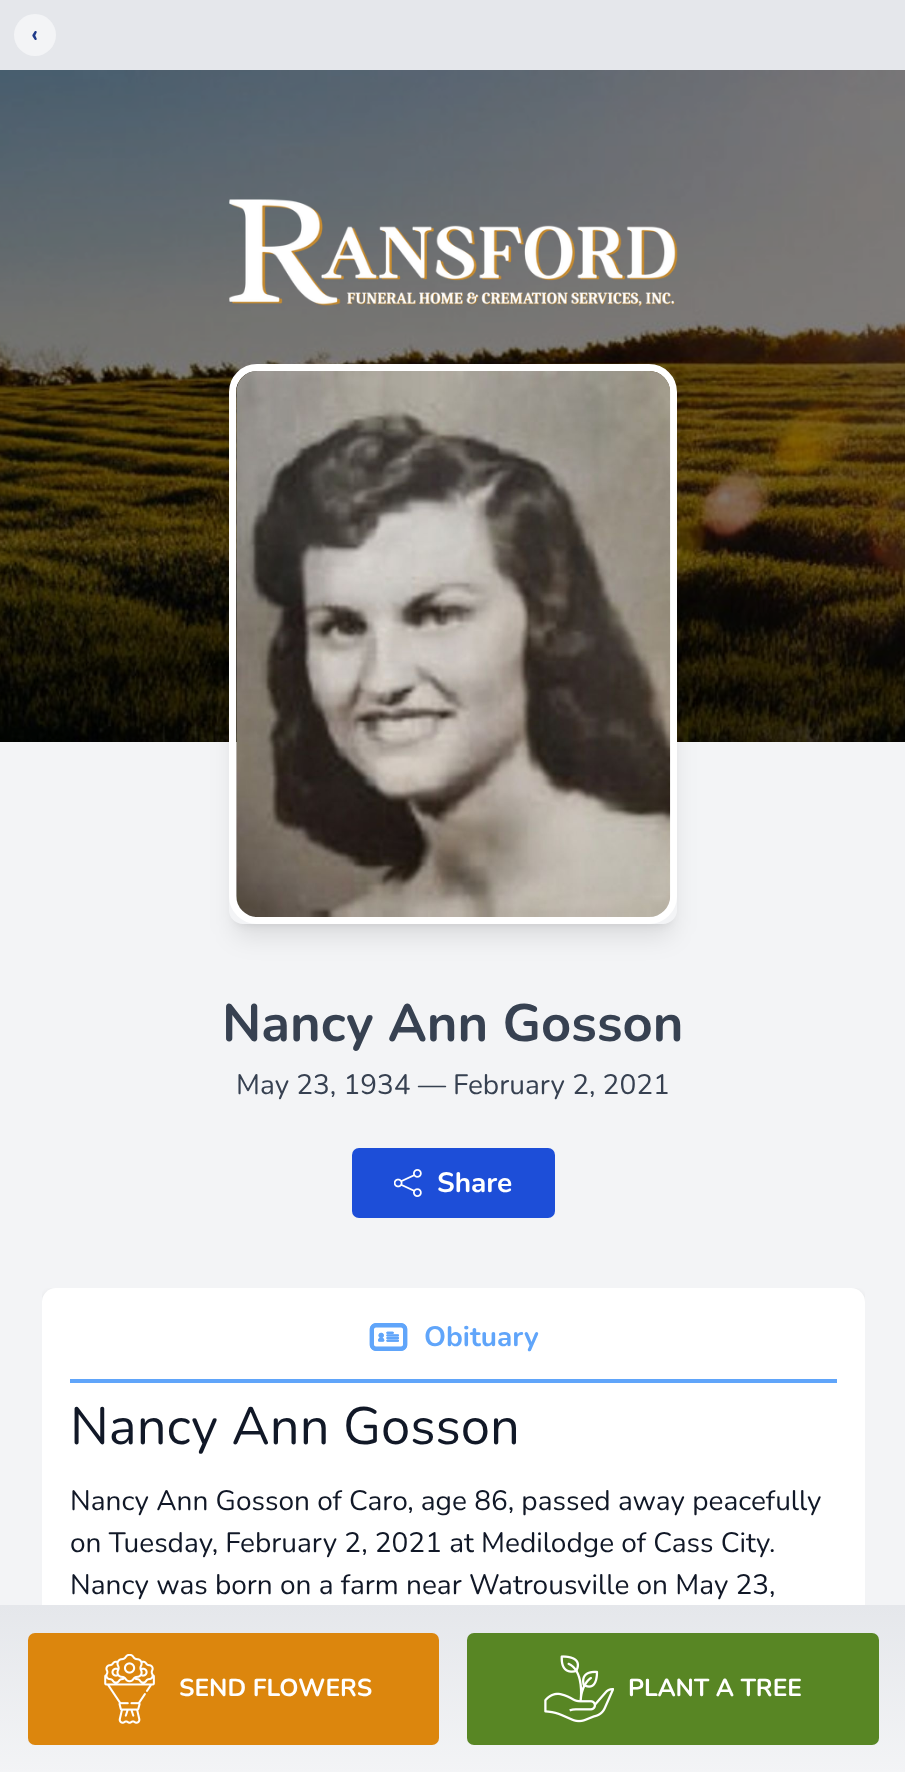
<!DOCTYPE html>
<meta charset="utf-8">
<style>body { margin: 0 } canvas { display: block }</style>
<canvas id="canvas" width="905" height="1772"></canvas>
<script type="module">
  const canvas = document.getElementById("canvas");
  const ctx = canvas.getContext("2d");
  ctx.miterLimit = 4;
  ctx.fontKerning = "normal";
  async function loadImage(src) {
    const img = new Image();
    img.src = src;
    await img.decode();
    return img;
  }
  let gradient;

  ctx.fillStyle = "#f3f4f6";
  ctx.fillRect(0, 0, 905, 1772);
  ctx.fillStyle = "#e5e7eb";
  ctx.fillRect(0, 0, 905, 70);
  ctx.fillStyle = "#f3f4f6";
  ctx.beginPath();
  ctx.arc(35, 35, 21, 0, Math.PI * 2);
  ctx.fill();
  ctx.font = "bold 24.5px Nunito";
  ctx.fillStyle = "#1e3a8a";
  ctx.fillText("‹", 31, 42);
  ctx.drawImage(await loadImage("img1.png"), 0, 70, 905, 672);
  ctx.drawImage(await loadImage("img2.png"), 229, 199, 449, 108);
  ctx.save();
  ctx.beginPath();
  ctx.moveTo(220, 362);
  ctx.lineTo(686, 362);
  ctx.lineTo(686, 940);
  ctx.lineTo(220, 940);
  ctx.closePath();
  ctx.moveTo(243, 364);
  ctx.lineTo(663, 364);
  ctx.bezierCurveTo(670.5, 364, 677, 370.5, 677, 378);
  ctx.lineTo(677, 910);
  ctx.bezierCurveTo(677, 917.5, 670.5, 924, 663, 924);
  ctx.lineTo(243, 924);
  ctx.bezierCurveTo(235.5, 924, 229, 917.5, 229, 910);
  ctx.lineTo(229, 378);
  ctx.bezierCurveTo(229, 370.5, 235.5, 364, 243, 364);
  ctx.closePath();
  ctx.clip("evenodd");
  ctx.fillStyle = "rgba(0, 0, 0, 0.1)";
  ctx.filter = "blur(5px)";
  ctx.beginPath();
  ctx.roundRect(236, 378, 434, 546, 7);
  ctx.fill();
  ctx.filter = "none";
  ctx.restore();
  ctx.save();
  ctx.beginPath();
  ctx.moveTo(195, 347);
  ctx.lineTo(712, 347);
  ctx.lineTo(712, 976);
  ctx.lineTo(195, 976);
  ctx.closePath();
  ctx.moveTo(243, 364);
  ctx.lineTo(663, 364);
  ctx.bezierCurveTo(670.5, 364, 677, 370.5, 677, 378);
  ctx.lineTo(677, 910);
  ctx.bezierCurveTo(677, 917.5, 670.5, 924, 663, 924);
  ctx.lineTo(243, 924);
  ctx.bezierCurveTo(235.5, 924, 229, 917.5, 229, 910);
  ctx.lineTo(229, 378);
  ctx.bezierCurveTo(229, 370.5, 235.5, 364, 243, 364);
  ctx.closePath();
  ctx.clip("evenodd");
  ctx.fillStyle = "rgba(0, 0, 0, 0.1)";
  ctx.filter = "blur(13px)";
  ctx.beginPath();
  ctx.roundRect(235, 387, 437, 549, 9);
  ctx.fill();
  ctx.filter = "none";
  ctx.restore();
  ctx.beginPath();
  ctx.roundRect(232.5, 367.5, 441, 553, 24.5);
  ctx.strokeStyle = "#ffffff";
  ctx.lineWidth = 7;
  ctx.stroke();
  ctx.drawImage(await loadImage("img3.png"), 236, 371, 435, 546);
  ctx.font = "bold 52.5px Nunito";
  ctx.fillStyle = "#374151";
  ctx.fillText("Nancy Ann Gosson", 222, 1041);
  ctx.font = "28px Nunito";
  ctx.fillText("May 23, 1934 — February 2, 2021", 236, 1094);
  ctx.fillStyle = "#1d4ed8";
  ctx.beginPath();
  ctx.roundRect(352, 1148, 203, 70, 7);
  ctx.fill();
  ctx.drawImage(await loadImage("img4.png"), 394, 1169, 28, 28);
  ctx.font = "bold 28px Nunito";
  ctx.fillStyle = "#ffffff";
  ctx.fillText("Share", 437, 1192);
  ctx.save();
  ctx.beginPath();
  ctx.rect(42, 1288, 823, 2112);
  ctx.clip();
  ctx.fillStyle = "rgba(0, 0, 0, 0.1)";
  ctx.filter = "blur(2.5px)";
  ctx.beginPath();
  ctx.roundRect(42, 1290, 823, 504, 14);
  ctx.fill();
  ctx.filter = "none";
  ctx.restore();
  ctx.beginPath();
  ctx.roundRect(42, 1288, 823, 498, 14);
  ctx.fill();
  ctx.fillStyle = "#60a5fa";
  ctx.fillRect(70, 1379, 767, 4);
  ctx.drawImage(await loadImage("img5.png"), 369, 1323, 39, 28);
  ctx.fillText("Obituary", 424, 1346);
  ctx.font = "52.5px Nunito";
  ctx.fillStyle = "#111827";
  ctx.fillText("Nancy Ann Gosson", 70, 1444);
  ctx.font = "28px Nunito";
  ctx.fillText("Nancy Ann Gosson of Caro, age 86, passed away peacefully", 70, 1510);
  ctx.fillText("on Tuesday, February 2, 2021 at Medilodge of Cass City.", 70, 1552);
  ctx.fillText("Nancy was born on a farm near Watrousville on May 23,", 70, 1594);
  gradient = ctx.createLinearGradient(453, 1605, 453, 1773);
  gradient.addColorStop(0, "#e5e7eb");
  gradient.addColorStop(1, "#f3f4f6");
  ctx.fillStyle = gradient;
  ctx.fillRect(0, 1605, 905, 167);
  ctx.fillStyle = "#dc860d";
  ctx.beginPath();
  ctx.roundRect(28, 1633, 411, 112, 7);
  ctx.fill();
  ctx.drawImage(await loadImage("img6.png"), 104, 1654, 51, 70);
  ctx.font = "bold 24.5px Nunito";
  ctx.fillStyle = "#ffffff";
  ctx.fillText("SEND FLOWERS", 179, 1696);
  ctx.fillStyle = "#588624";
  ctx.beginPath();
  ctx.roundRect(467, 1633, 412, 112, 7);
  ctx.fill();
  ctx.drawImage(await loadImage("img7.png"), 544, 1655, 70, 68);
  ctx.fillStyle = "#ffffff";
  ctx.fillText("PLANT A TREE", 628, 1696);
</script>
